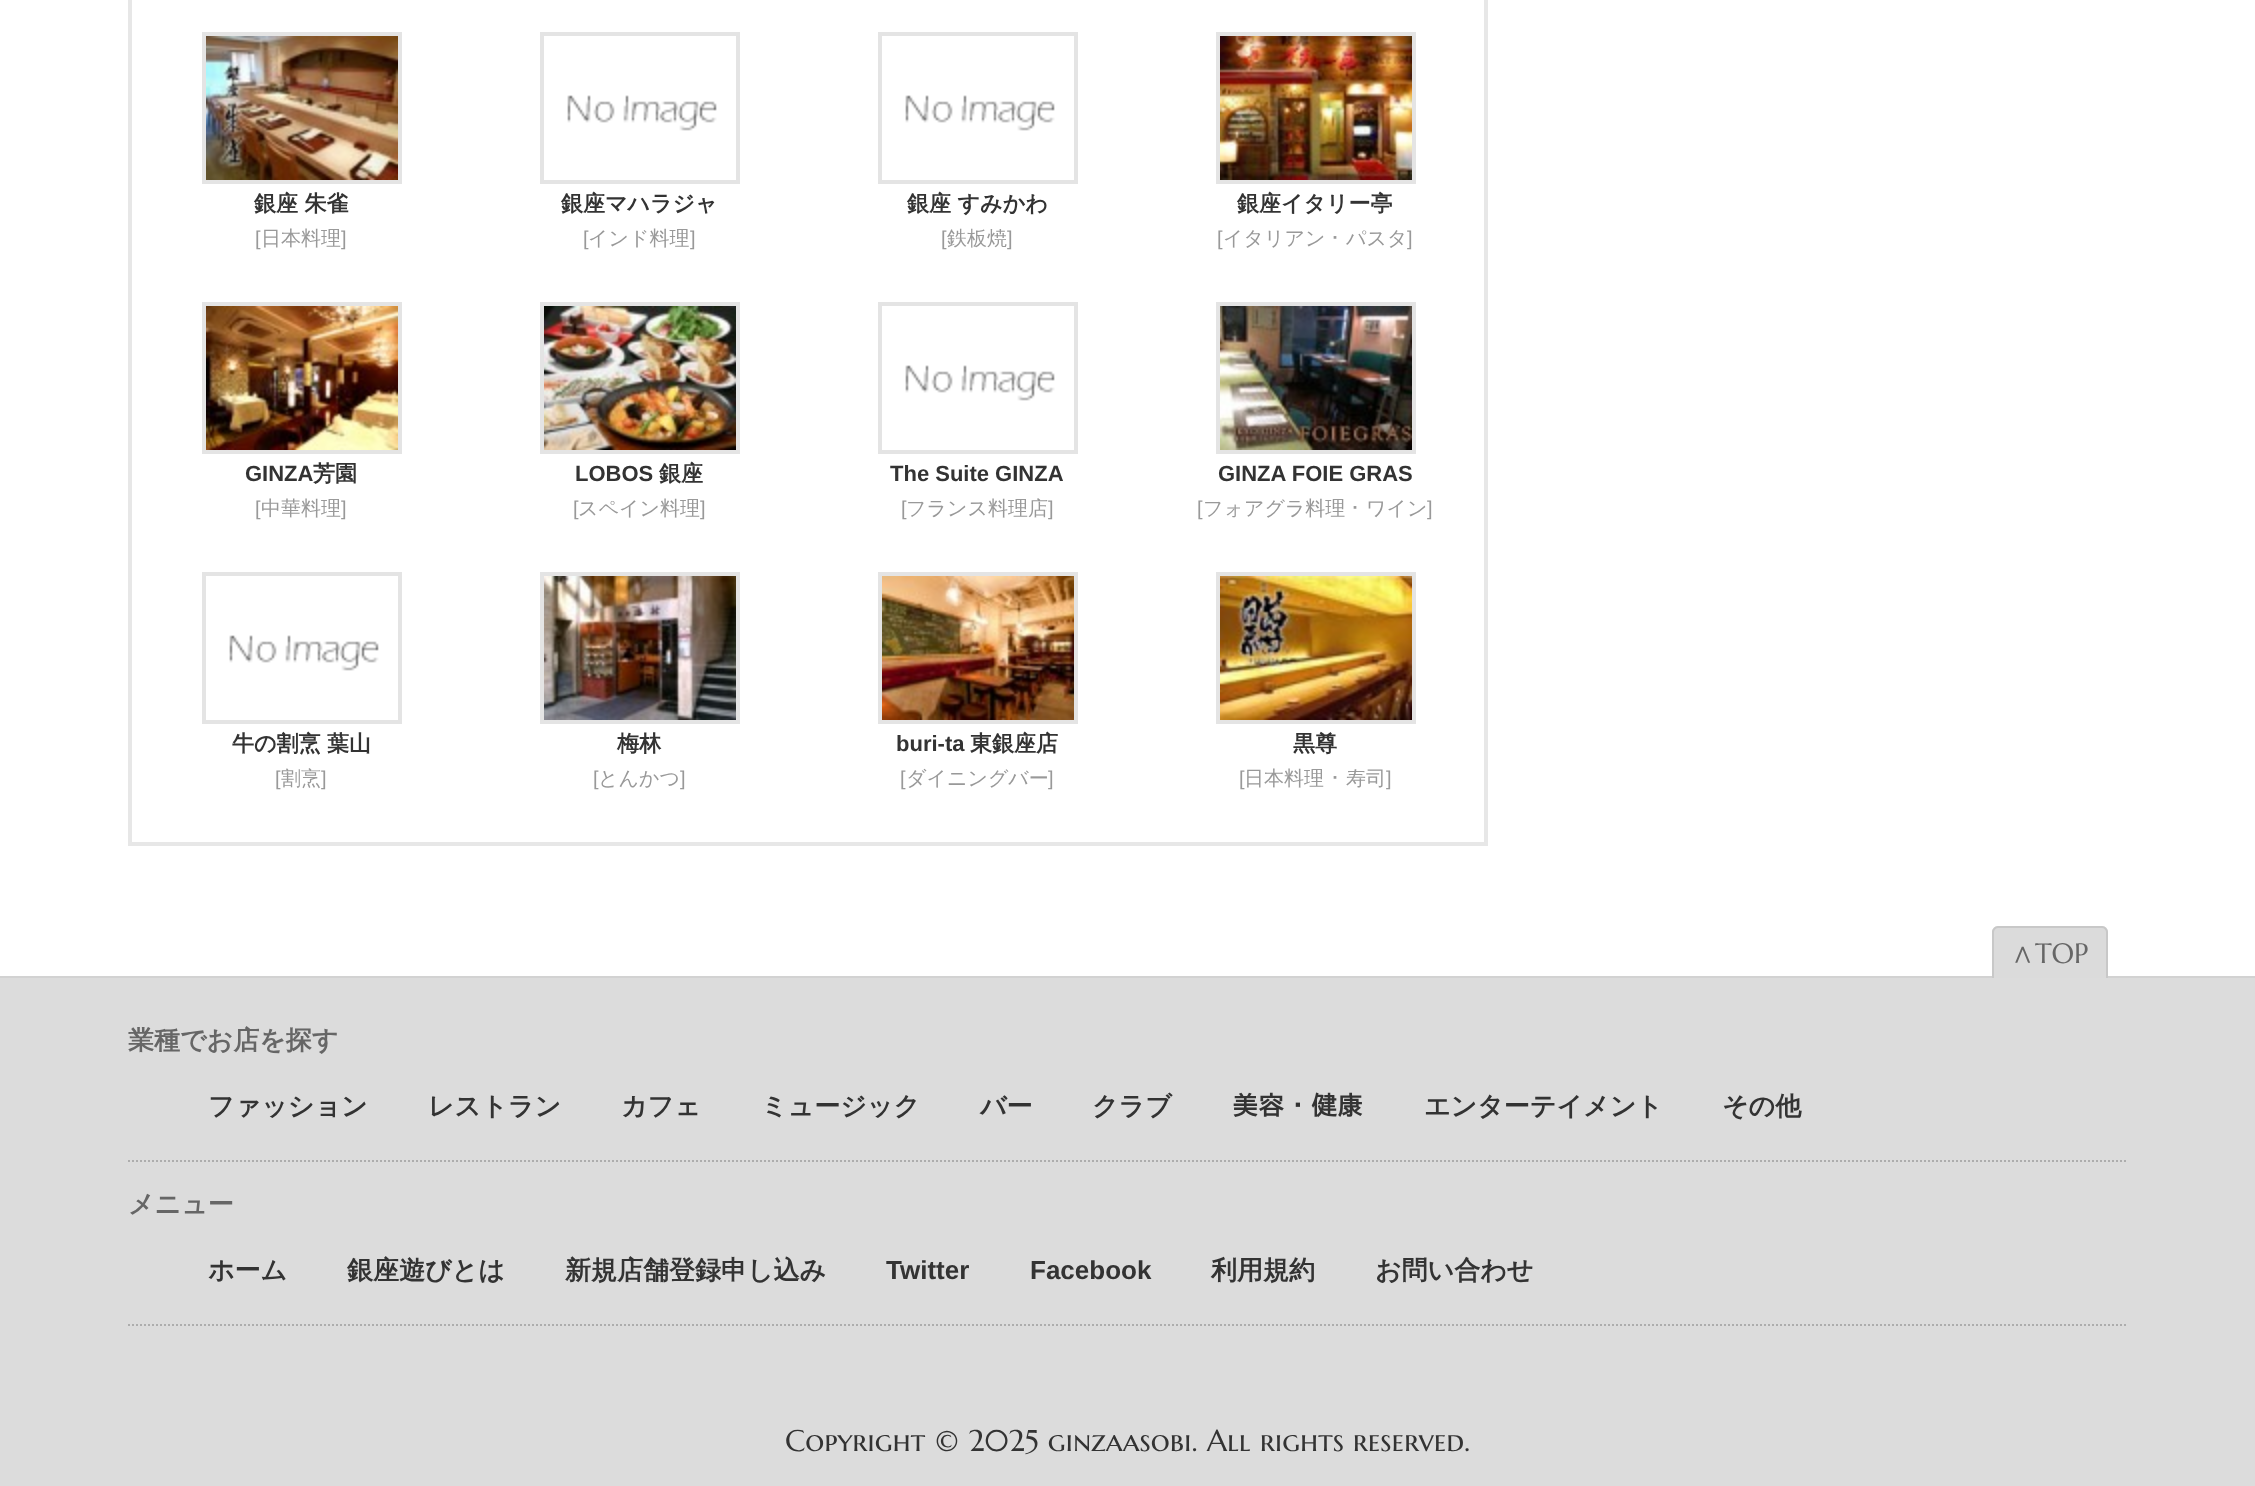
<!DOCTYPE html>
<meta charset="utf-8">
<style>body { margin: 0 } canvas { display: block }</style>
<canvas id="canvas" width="2255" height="1486"></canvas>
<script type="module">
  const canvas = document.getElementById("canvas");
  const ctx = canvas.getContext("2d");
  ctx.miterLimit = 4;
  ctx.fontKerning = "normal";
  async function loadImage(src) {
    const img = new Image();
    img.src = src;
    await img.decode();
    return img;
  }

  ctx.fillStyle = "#ffffff";
  ctx.fillRect(0, 0, 2255, 1486);
  ctx.fillStyle = "#e7e7e7";
  ctx.fillRect(1484, 0, 4, 846);
  ctx.fillRect(128, 842, 1360, 4);
  ctx.fillRect(128, 0, 4, 846);
  ctx.strokeStyle = "#e4e4e4";
  ctx.lineWidth = 4;
  ctx.strokeRect(204, 34, 196, 148);
  ctx.drawImage(await loadImage("img1.png"), 206, 36, 192, 144);
  ctx.font = "bold 22px WenQuanYi Zen Hei";
  ctx.fillStyle = "#333333";
  ctx.fillText("銀座 朱雀", 254, 211);
  ctx.font = "20px Liberation Sans";
  ctx.fillStyle = "#999999";
  ctx.fillText("[", 255, 245);
  ctx.font = "500 20px WenQuanYi Zen Hei";
  ctx.fillText("日本料理", 261, 245);
  ctx.font = "20px Liberation Sans";
  ctx.fillText("]", 341, 245);
  ctx.strokeRect(542, 34, 196, 148);
  ctx.drawImage(await loadImage("img2.png"), 567, 95, 150, 36);
  ctx.font = "bold 22px WenQuanYi Zen Hei";
  ctx.fillStyle = "#333333";
  ctx.fillText("銀座マハラジャ", 561, 211);
  ctx.font = "20px Liberation Sans";
  ctx.fillStyle = "#999999";
  ctx.fillText("[", 583, 245);
  ctx.font = "500 20px WenQuanYi Zen Hei";
  ctx.fillText("インド料理", 588, 245);
  ctx.font = "20px Liberation Sans";
  ctx.fillText("]", 690, 245);
  ctx.strokeRect(880, 34, 196, 148);
  ctx.drawImage(await loadImage("img2.png"), 905, 95, 150, 36);
  ctx.font = "bold 22px WenQuanYi Zen Hei";
  ctx.fillStyle = "#333333";
  ctx.fillText("銀座 すみかわ", 907, 211);
  ctx.font = "20px Liberation Sans";
  ctx.fillStyle = "#999999";
  ctx.fillText("[", 941, 245);
  ctx.font = "500 20px WenQuanYi Zen Hei";
  ctx.fillText("鉄板焼", 947, 245);
  ctx.font = "20px Liberation Sans";
  ctx.fillText("]", 1007, 245);
  ctx.strokeRect(1218, 34, 196, 148);
  ctx.drawImage(await loadImage("img3.png"), 1220, 36, 192, 144);
  ctx.font = "bold 22px WenQuanYi Zen Hei";
  ctx.fillStyle = "#333333";
  ctx.fillText("銀座イタリー亭", 1237, 211);
  ctx.font = "20px Liberation Sans";
  ctx.fillStyle = "#999999";
  ctx.fillText("[", 1217, 245);
  ctx.font = "500 20px WenQuanYi Zen Hei";
  ctx.fillText("イタリアン", 1223, 245);
  ctx.font = "20px IPAPGothic";
  ctx.fillText("･", 1330, 245);
  ctx.font = "500 20px WenQuanYi Zen Hei";
  ctx.fillText("パスタ", 1346, 245);
  ctx.font = "20px Liberation Sans";
  ctx.fillText("]", 1407, 245);
  ctx.strokeRect(204, 304, 196, 148);
  ctx.drawImage(await loadImage("img4.png"), 206, 306, 192, 144);
  ctx.font = "bold 22px Liberation Sans";
  ctx.fillStyle = "#333333";
  ctx.fillText("GINZA", 245, 481);
  ctx.font = "bold 22px WenQuanYi Zen Hei";
  ctx.fillText("芳園", 313, 481);
  ctx.font = "20px Liberation Sans";
  ctx.fillStyle = "#999999";
  ctx.fillText("[", 255, 515);
  ctx.font = "500 20px WenQuanYi Zen Hei";
  ctx.fillText("中華料理", 261, 515);
  ctx.font = "20px Liberation Sans";
  ctx.fillText("]", 341, 515);
  ctx.strokeRect(542, 304, 196, 148);
  ctx.drawImage(await loadImage("img5.png"), 544, 306, 192, 144);
  ctx.font = "bold 22px Liberation Sans";
  ctx.fillStyle = "#333333";
  ctx.fillText("LOBOS", 575, 481);
  ctx.font = "bold 22px WenQuanYi Zen Hei";
  ctx.fillText("銀座", 659, 481);
  ctx.font = "20px Liberation Sans";
  ctx.fillStyle = "#999999";
  ctx.fillText("[", 573, 515);
  ctx.font = "500 20px WenQuanYi Zen Hei";
  ctx.fillText("スペイン料理", 578, 515);
  ctx.font = "20px Liberation Sans";
  ctx.fillText("]", 700, 515);
  ctx.strokeRect(880, 304, 196, 148);
  ctx.drawImage(await loadImage("img2.png"), 905, 365, 150, 36);
  ctx.font = "bold 22px Liberation Sans";
  ctx.fillStyle = "#333333";
  ctx.fillText("The Suite GINZA", 890, 481);
  ctx.font = "20px Liberation Sans";
  ctx.fillStyle = "#999999";
  ctx.fillText("[", 901, 515);
  ctx.font = "500 20px WenQuanYi Zen Hei";
  ctx.fillText("フランス料理店", 906, 515);
  ctx.font = "20px Liberation Sans";
  ctx.fillText("]", 1048, 515);
  ctx.strokeRect(1218, 304, 196, 148);
  ctx.drawImage(await loadImage("img6.png"), 1220, 306, 192, 144);
  ctx.font = "bold 22px Liberation Sans";
  ctx.fillStyle = "#333333";
  ctx.fillText("GINZA FOIE GRAS", 1218, 481);
  ctx.font = "20px Liberation Sans";
  ctx.fillStyle = "#999999";
  ctx.fillText("[", 1197, 515);
  ctx.font = "500 20px WenQuanYi Zen Hei";
  ctx.fillText("フォアグラ料理", 1203, 515);
  ctx.font = "20px IPAPGothic";
  ctx.fillText("･", 1350, 515);
  ctx.font = "500 20px WenQuanYi Zen Hei";
  ctx.fillText("ワイン", 1366, 515);
  ctx.font = "20px Liberation Sans";
  ctx.fillText("]", 1427, 515);
  ctx.strokeRect(204, 574, 196, 148);
  ctx.drawImage(await loadImage("img2.png"), 229, 635, 150, 36);
  ctx.font = "bold 22px WenQuanYi Zen Hei";
  ctx.fillStyle = "#333333";
  ctx.fillText("牛の割烹 葉山", 232, 751);
  ctx.font = "20px Liberation Sans";
  ctx.fillStyle = "#999999";
  ctx.fillText("[", 275, 785);
  ctx.font = "500 20px WenQuanYi Zen Hei";
  ctx.fillText("割烹", 281, 785);
  ctx.font = "20px Liberation Sans";
  ctx.fillText("]", 321, 785);
  ctx.strokeRect(542, 574, 196, 148);
  ctx.drawImage(await loadImage("img7.png"), 544, 576, 192, 144);
  ctx.font = "bold 22px WenQuanYi Zen Hei";
  ctx.fillStyle = "#333333";
  ctx.fillText("梅林", 617, 751);
  ctx.font = "20px Liberation Sans";
  ctx.fillStyle = "#999999";
  ctx.fillText("[", 593, 785);
  ctx.font = "500 20px WenQuanYi Zen Hei";
  ctx.fillText("とんかつ", 598, 785);
  ctx.font = "20px Liberation Sans";
  ctx.fillText("]", 680, 785);
  ctx.strokeRect(880, 574, 196, 148);
  ctx.drawImage(await loadImage("img8.png"), 882, 576, 192, 144);
  ctx.font = "bold 22px Liberation Sans";
  ctx.fillStyle = "#333333";
  ctx.fillText("buri-ta", 896, 751);
  ctx.font = "bold 22px WenQuanYi Zen Hei";
  ctx.fillText("東銀座店", 970, 751);
  ctx.font = "20px Liberation Sans";
  ctx.fillStyle = "#999999";
  ctx.fillText("[", 900, 785);
  ctx.font = "500 20px WenQuanYi Zen Hei";
  ctx.fillText("ダイニングバー", 906, 785);
  ctx.font = "20px Liberation Sans";
  ctx.fillText("]", 1048, 785);
  ctx.strokeRect(1218, 574, 196, 148);
  ctx.drawImage(await loadImage("img9.png"), 1220, 576, 192, 144);
  ctx.font = "bold 22px WenQuanYi Zen Hei";
  ctx.fillStyle = "#333333";
  ctx.fillText("黒尊", 1293, 751);
  ctx.font = "20px Liberation Sans";
  ctx.fillStyle = "#999999";
  ctx.fillText("[", 1239, 785);
  ctx.font = "500 20px WenQuanYi Zen Hei";
  ctx.fillText("日本料理", 1244, 785);
  ctx.font = "20px IPAPGothic";
  ctx.fillText("･", 1330, 785);
  ctx.font = "500 20px WenQuanYi Zen Hei";
  ctx.fillText("寿司", 1346, 785);
  ctx.font = "20px Liberation Sans";
  ctx.fillText("]", 1386, 785);
  ctx.fillStyle = "#d2d2d2";
  ctx.fillRect(0, 976, 2255, 2);
  ctx.fillStyle = "#dbdbdb";
  ctx.beginPath();
  ctx.roundRect(1992, 926, 116, 52, [6, 6, 0, 0]);
  ctx.fill();
  ctx.fillStyle = "#c8c8c8";
  ctx.beginPath();
  ctx.moveTo(1998, 926);
  ctx.lineTo(2102, 926);
  ctx.bezierCurveTo(2105, 926, 2108, 929, 2108, 932);
  ctx.lineTo(2108, 978);
  ctx.lineTo(1992, 978);
  ctx.lineTo(1992, 932);
  ctx.bezierCurveTo(1992, 929, 1995, 926, 1998, 926);
  ctx.closePath();
  ctx.moveTo(1998, 928);
  ctx.lineTo(2102, 928);
  ctx.bezierCurveTo(2104, 928, 2106, 930, 2106, 932);
  ctx.lineTo(2106, 978);
  ctx.lineTo(1994, 978);
  ctx.lineTo(1994, 932);
  ctx.bezierCurveTo(1994, 930, 1996, 928, 1998, 928);
  ctx.closePath();
  ctx.fill("evenodd");
  ctx.font = "500 28px WenQuanYi Zen Hei";
  ctx.fillStyle = "#666666";
  ctx.fillText("∧", 2011, 963);
  ctx.font = "28px Marcellus SC";
  ctx.fillText("TOP", 2035, 963);
  ctx.fillStyle = "#dcdcdc";
  ctx.fillRect(0, 978, 2255, 508);
  ctx.font = "bold 26px WenQuanYi Zen Hei";
  ctx.fillStyle = "#666666";
  ctx.fillText("業種でお店を探す", 128, 1049);
  ctx.beginPath();
  ctx.moveTo(128, 1161);
  ctx.lineTo(2128, 1161);
  ctx.strokeStyle = "#adadad";
  ctx.lineWidth = 2;
  ctx.setLineDash([2, 2]);
  ctx.stroke();
  ctx.fillStyle = "#333333";
  ctx.fillText("ファッション", 208, 1115);
  ctx.fillText("レストラン", 428, 1115);
  ctx.fillText("カフェ", 621, 1115);
  ctx.fillText("ミュージック", 761, 1115);
  ctx.fillText("バー", 980, 1115);
  ctx.fillText("クラブ", 1092, 1115);
  ctx.font = "bold 26px IPAPGothic";
  ctx.fillText("美容 ･ 健康", 1232, 1115);
  ctx.font = "bold 26px WenQuanYi Zen Hei";
  ctx.fillText("エンターテイメント", 1424, 1115);
  ctx.fillText("その他", 1722, 1115);
  ctx.fillStyle = "#666666";
  ctx.fillText("メニュー", 128, 1213);
  ctx.beginPath();
  ctx.moveTo(128, 1325);
  ctx.lineTo(2128, 1325);
  ctx.stroke();
  ctx.fillStyle = "#333333";
  ctx.fillText("ホーム", 208, 1279);
  ctx.fillText("銀座遊びとは", 347, 1279);
  ctx.fillText("新規店舗登録申し込み", 565, 1279);
  ctx.font = "bold 26px Liberation Sans";
  ctx.fillText("Twitter", 886, 1279);
  ctx.fillText("Facebook", 1030, 1279);
  ctx.font = "bold 26px WenQuanYi Zen Hei";
  ctx.fillText("利用規約", 1211, 1279);
  ctx.fillText("お問い合わせ", 1375, 1279);
  ctx.font = "30px Marcellus SC";
  ctx.fillText("Copyright © 2025 ginzaasobi. All rights reserved.", 785, 1451);
</script>
